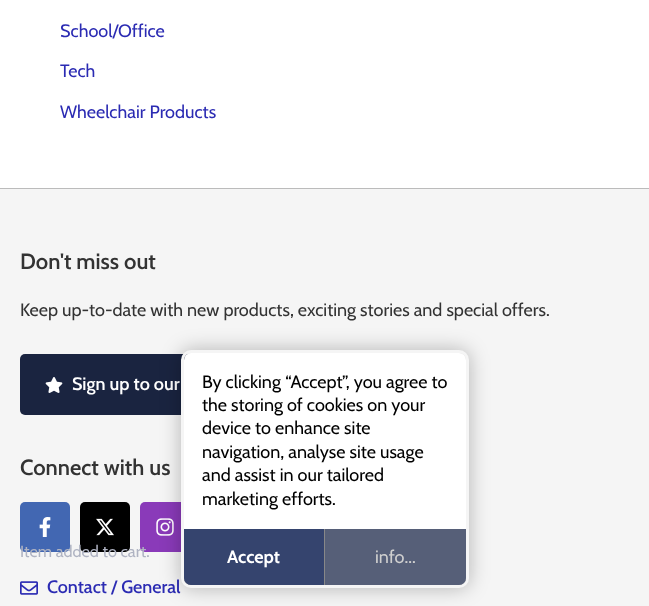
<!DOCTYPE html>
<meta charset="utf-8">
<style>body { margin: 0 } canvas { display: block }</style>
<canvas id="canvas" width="649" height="606"></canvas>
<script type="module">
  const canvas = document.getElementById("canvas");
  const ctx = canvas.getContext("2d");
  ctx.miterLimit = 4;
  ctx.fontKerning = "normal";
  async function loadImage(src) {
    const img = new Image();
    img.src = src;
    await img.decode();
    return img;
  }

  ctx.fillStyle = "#ffffff";
  ctx.fillRect(0, 0, 649, 606);
  ctx.font = "18px Cabin";
  ctx.fillStyle = "#2b2bb3";
  ctx.fillText("School/Office", 60, 37);
  ctx.fillText("Tech", 60, 77);
  ctx.fillText("Wheelchair Products", 60, 118);
  ctx.fillStyle = "#f5f5f5";
  ctx.fillRect(0, 189, 649, 417);
  ctx.fillStyle = "#bbbbbb";
  ctx.fillRect(0, 188, 649, 1);
  ctx.font = "600 22px Cabin";
  ctx.fillStyle = "#333333";
  ctx.fillText("Don't miss out", 20, 269);
  ctx.font = "18px Cabin";
  ctx.fillText("Keep up-to-date with new products, exciting stories and special offers.", 20, 316);
  ctx.fillStyle = "#1a2440";
  ctx.beginPath();
  ctx.roundRect(20, 354, 270, 61, 5);
  ctx.fill();
  ctx.drawImage(await loadImage("img1.png"), 45, 377, 18, 16);
  ctx.font = "600 18px Cabin";
  ctx.fillStyle = "#ffffff";
  ctx.fillText("Sign up to our", 72, 390);
  ctx.font = "600 22px Cabin";
  ctx.fillStyle = "#333333";
  ctx.fillText("Connect with us", 20, 475);
  ctx.fillStyle = "#4267b2";
  ctx.beginPath();
  ctx.roundRect(20, 502, 50, 50, 5);
  ctx.fill();
  ctx.drawImage(await loadImage("img2.png"), 39, 517, 12, 20);
  ctx.fillStyle = "#000000";
  ctx.beginPath();
  ctx.roundRect(80, 502, 50, 50, 5);
  ctx.fill();
  ctx.drawImage(await loadImage("img3.png"), 96, 518, 18, 18);
  ctx.fillStyle = "#8a3ab9";
  ctx.beginPath();
  ctx.roundRect(140, 502, 50, 50, 5);
  ctx.fill();
  ctx.drawImage(await loadImage("img4.png"), 156, 518, 18, 18);
  ctx.drawImage(await loadImage("img5.png"), 20, 581, 18, 14);
  ctx.font = "500 18px Cabin";
  ctx.fillStyle = "#2b2bb3";
  ctx.fillText("Contact / General", 47, 593);
  ctx.font = "16.25px Cabin";
  ctx.fillStyle = "#afb3c2";
  ctx.fillText("Item added to cart.", 20, 557);
  ctx.fillStyle = "rgba(0, 0, 0, 0.27)";
  ctx.filter = "blur(10px)";
  ctx.beginPath();
  ctx.roundRect(181, 350, 288, 238, 10);
  ctx.fill();
  ctx.filter = "none";
  ctx.beginPath();
  ctx.roundRect(182.5, 351.5, 285, 235, 8.5);
  ctx.strokeStyle = "#f5f5f5";
  ctx.lineWidth = 3;
  ctx.stroke();
  ctx.fillStyle = "#ffffff";
  ctx.beginPath();
  ctx.roundRect(184, 353, 282, 176, [7, 7, 0, 0]);
  ctx.fill();
  ctx.font = "18px Cabin";
  ctx.fillStyle = "#000000";
  ctx.fillText("By clicking “Accept”, you agree to", 202, 388);
  ctx.fillText("the storing of cookies on your", 202, 411);
  ctx.fillText("device to enhance site", 202, 434);
  ctx.fillText("navigation, analyse site usage", 202, 458);
  ctx.fillText("and assist in our tailored", 202, 481);
  ctx.fillText("marketing efforts.", 202, 505);
  ctx.fillStyle = "#888888";
  ctx.beginPath();
  ctx.roundRect(184, 529, 282, 56, [0, 0, 7, 7]);
  ctx.fill();
  ctx.fillStyle = "#35446e";
  ctx.beginPath();
  ctx.roundRect(184, 529, 140, 56, [0, 0, 0, 7]);
  ctx.fill();
  ctx.font = "bold 18px Cabin";
  ctx.fillStyle = "#ffffff";
  ctx.fillText("Accept", 227, 563);
  ctx.fillStyle = "rgba(53, 68, 110, 0.6)";
  ctx.beginPath();
  ctx.roundRect(325, 529, 141, 56, [0, 0, 7, 0]);
  ctx.fill();
  ctx.font = "18px Cabin";
  ctx.fillStyle = "#cfcfcf";
  ctx.fillText("info...", 375, 563);
</script>
